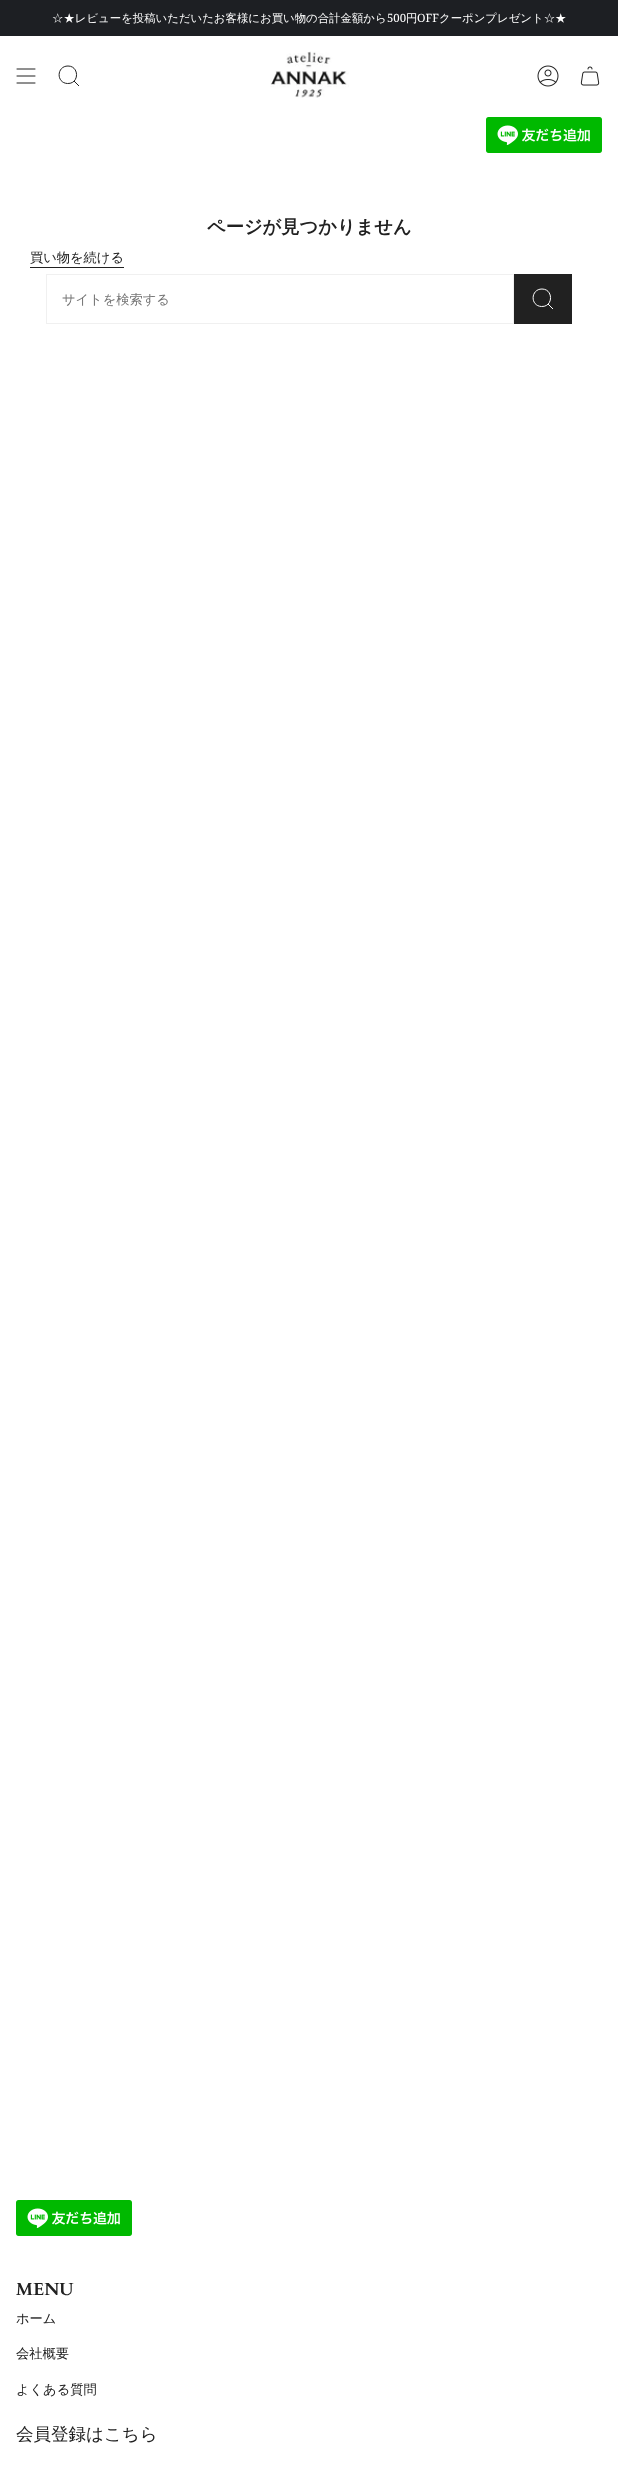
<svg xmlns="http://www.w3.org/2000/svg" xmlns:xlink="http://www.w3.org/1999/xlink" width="618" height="2472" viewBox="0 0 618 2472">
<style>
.cls-1{font:500 11.4px WenQuanYi Zen Hei;fill:#ffffff}
.cls-2{font:11.4px Noto Serif;fill:#ffffff}
.cls-3{font:bold 18.25px WenQuanYi Zen Hei;fill:#212121}
.cls-4{font:500 13.25px WenQuanYi Zen Hei;fill:#212121}
.cls-5{font:500 13.25px WenQuanYi Zen Hei;fill:#757575}
.cls-6{font:bold 17.5px Cardo;fill:#212121}
.cls-7{font:500 17.5px WenQuanYi Zen Hei;fill:#212121}
</style>
<rect width="100%" height="100%" fill="#ffffff"/>
<rect fill="#1d1f23" x="0" y="0" width="618" height="36"/>
<path fill="none" stroke="#212121" stroke-linecap="round" stroke-linejoin="round" d="M17 69H35M17 76H35M17 83H35"/>
<path fill="none" stroke="#212121" d="M68 66C79.5 66 79.5 84 67.5 83.5C56 83 56.5 66 68 66ZM74 81L79 86"/>
<image xlink:href="image0.png" x="270" y="51" width="79" height="47"/>
<image xlink:href="image1.png" x="537" y="65" width="22" height="22"/>
<image xlink:href="image2.png" x="580" y="66" width="20" height="20"/>
<image xlink:href="image3.png" x="486" y="117" width="116" height="36"/>
<rect fill="#212121" x="30" y="267" width="94" height="1"/>
<rect fill="none" stroke="#f0f0f0" x="46.5" y="274.5" width="467" height="49"/>
<rect fill="#212121" x="514" y="274" width="58" height="50"/>
<path fill="none" stroke="#ffffff" d="M542 289C553.5 289 553.5 307 541.5 306.5C530 306 530.5 289 542 289ZM548 304L553 309"/>
<image xlink:href="image3.png" x="16" y="2200" width="116" height="36"/>
<text class="cls-1" x="52" y="22">☆★レビューを投稿いただいたお客様にお買い物の合計金額から</text>
<text class="cls-2" x="387" y="22">500</text>
<text class="cls-1" x="406" y="22">円</text>
<text class="cls-2" x="417" y="22">OFF</text>
<text class="cls-1" x="439" y="22">クーポンプレゼント☆★</text>
<text class="cls-3" x="207" y="233">ページが見つかりません</text>
<text class="cls-4" x="30" y="262">買い物を続ける</text>
<text class="cls-5" x="62" y="304">サイトを検索する</text>
<text class="cls-6" x="16" y="2295">MENU</text>
<text class="cls-4" x="16" y="2323">ホーム</text>
<text class="cls-4" x="16" y="2358">会社概要</text>
<text class="cls-4" x="16" y="2394">よくある質問</text>
<text class="cls-7" x="16" y="2440">会員登録はこちら</text>
</svg>
